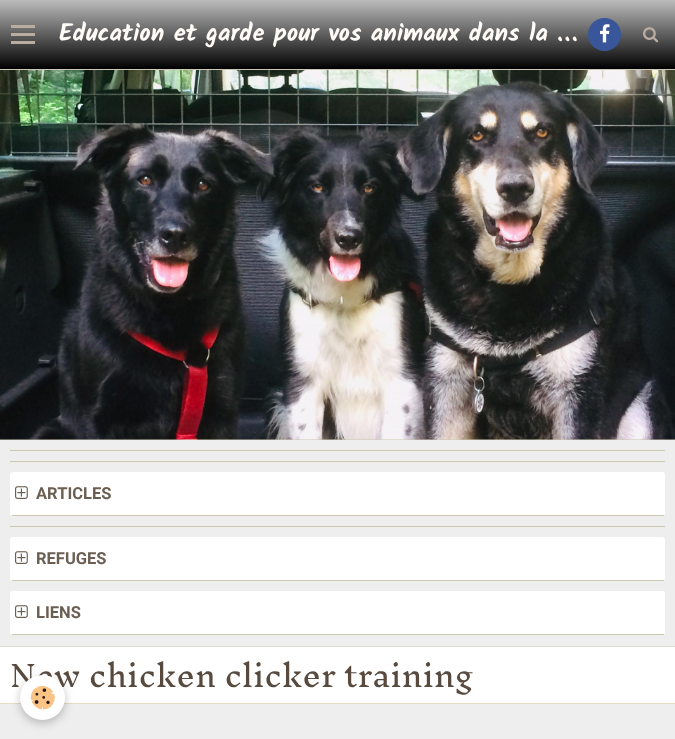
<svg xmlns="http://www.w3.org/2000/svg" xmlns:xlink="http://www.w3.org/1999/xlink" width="675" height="739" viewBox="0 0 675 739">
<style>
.cls-1{font:bold 24.5px Kalam;fill:#fffbf7}
.cls-2{font:bold 16.5px Roboto;fill:#6b5f53}
.cls-3{font:300 29.4px Inknut Antiqua;fill:#584a3e}
</style>
<defs>
<linearGradient id="g1" gradientUnits="userSpaceOnUse" x1="338" y1="69" x2="338" y2="0"><stop offset="0" stop-color="#000000"/><stop offset="1" stop-color="#bcbcbc"/></linearGradient>
</defs>
<rect width="100%" height="100%" fill="#eeeeee"/>
<rect fill="#cdc8b1" x="0" y="69" width="675" height="1"/>
<rect fill="url(#g1)" x="0" y="0" width="675" height="69"/>
<rect fill="#baada0" x="11" y="33" width="24" height="3"/>
<rect fill="#baada0" x="11" y="25" width="24" height="3"/>
<rect fill="#baada0" x="11" y="41" width="24" height="3"/>
<circle fill="#385699" cx="604.5" cy="34.5" r="16.5"/>
<image xlink:href="image0.png" x="600" y="24" width="10" height="19"/>
<image xlink:href="image1.png" x="643" y="27" width="16" height="16"/>
<image xlink:href="image2.png" x="0" y="70" width="675" height="370"/>
<rect fill="#cdc8b1" fill-opacity="0.5" x="0" y="439" width="675" height="1"/>
<rect fill="#dedbd0" x="0" y="646" width="675" height="1"/>
<rect fill="#cdc8b1" x="10" y="450" width="655" height="1"/>
<rect fill="#cdc8b1" x="10" y="461" width="655" height="1"/>
<rect fill="#ffffff" x="10" y="472" width="655" height="44" rx="3"/>
<rect fill="#cdc8b1" x="12" y="515" width="652" height="1"/>
<image xlink:href="image3.png" x="15" y="486" width="13" height="13"/>
<rect fill="#cdc8b1" x="10" y="526" width="655" height="1"/>
<rect fill="#ffffff" x="10" y="537" width="655" height="44" rx="3"/>
<rect fill="#cdc8b1" x="12" y="580" width="652" height="1"/>
<image xlink:href="image3.png" x="15" y="551" width="13" height="13"/>
<rect fill="#ffffff" x="10" y="591" width="655" height="44" rx="3"/>
<rect fill="#cdc8b1" x="12" y="634" width="652" height="1"/>
<image xlink:href="image3.png" x="15" y="605" width="13" height="13"/>
<rect fill="#ffffff" x="0" y="647" width="675" height="56"/>
<rect fill="#e3dec6" x="0" y="703" width="675" height="1"/>
<rect fill="#000000" fill-opacity="0.24" filter="blur(5px)" x="20" y="678" width="45" height="45" rx="22.5"/>
<text class="cls-1" x="59" y="41">Education et garde pour vos animaux dans la …</text>
<text class="cls-2" x="36" y="499">ARTICLES</text>
<text class="cls-2" x="36" y="564">REFUGES</text>
<text class="cls-2" x="36" y="618">LIENS</text>
<text class="cls-3" x="10" y="687">New chicken clicker training</text>
<circle fill="#ffffff" cx="42.5" cy="697.5" r="22.5"/>
<image xlink:href="image4.png" x="30" y="685" width="25" height="25"/>
</svg>
